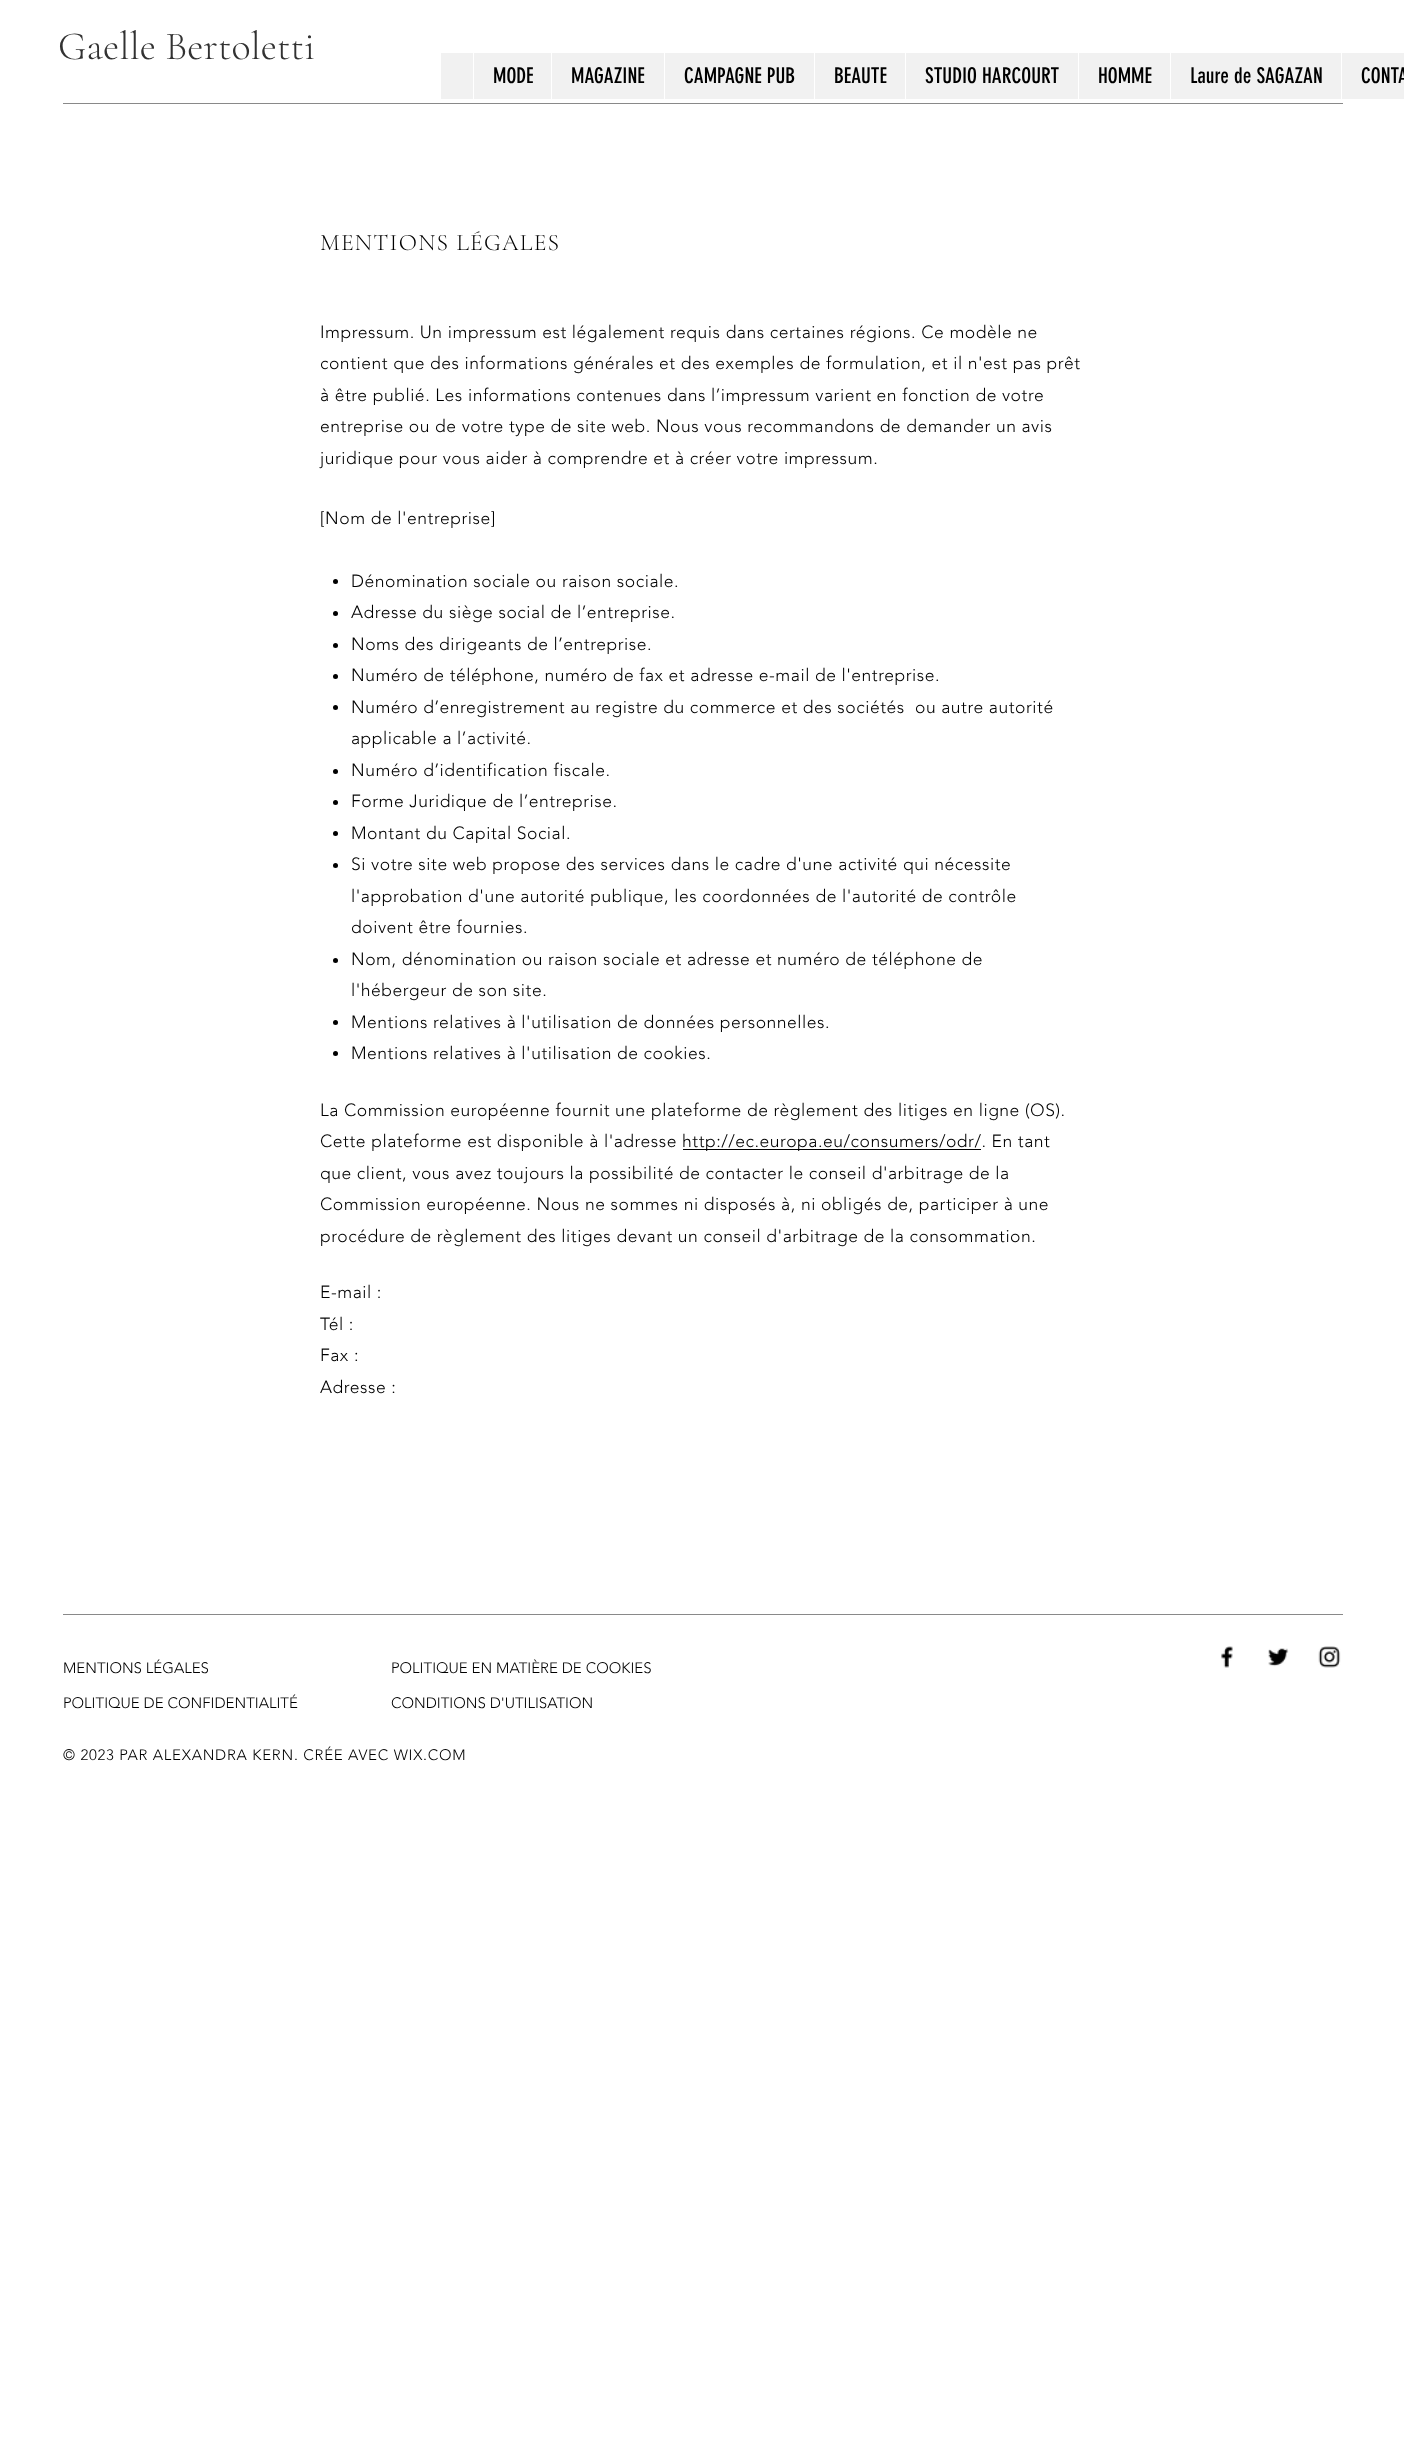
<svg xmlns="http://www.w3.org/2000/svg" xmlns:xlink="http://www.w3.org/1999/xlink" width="1404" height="2455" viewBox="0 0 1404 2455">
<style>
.cls-1{font:300 40px Cormorant Garamond;fill:#323232}
.cls-2{font:21.25px 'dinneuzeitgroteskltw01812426';fill:#000000}
.cls-3{font:300 23.75px Cormorant Garamond;letter-spacing:1.25px;fill:#000000}
.cls-4{font:300 17.5px 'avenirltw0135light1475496';letter-spacing:0.53px;fill:#000000}
.cls-5{font:300 15px 'avenirltw0135light1475496';fill:#000000}
.cls-6{font:300 15px 'avenirltw0135light1475496';letter-spacing:0.75px;fill:#000000}
</style>
<rect width="100%" height="100%" fill="#ffffff"/>
<rect fill="#f1f1f1" x="441" y="53" width="963" height="46"/>
<rect fill="#ffffff" x="473" y="53" width="1" height="46"/>
<rect fill="#ffffff" x="551" y="53" width="1" height="46"/>
<rect fill="#ffffff" x="664" y="53" width="1" height="46"/>
<rect fill="#ffffff" x="814" y="53" width="1" height="46"/>
<rect fill="#ffffff" x="905" y="53" width="1" height="46"/>
<rect fill="#ffffff" x="1078" y="53" width="1" height="46"/>
<rect fill="#ffffff" x="1170" y="53" width="1" height="46"/>
<rect fill="#ffffff" x="1341" y="53" width="1" height="46"/>
<rect fill="#898989" x="63" y="103" width="1280" height="1"/>
<circle fill="#000000" cx="335.5" cy="581.5" r="2.5"/>
<circle fill="#000000" cx="335.5" cy="613.5" r="2.5"/>
<circle fill="#000000" cx="335.5" cy="645.5" r="2.5"/>
<circle fill="#000000" cx="335.5" cy="676.5" r="2.5"/>
<circle fill="#000000" cx="335.5" cy="707.5" r="2.5"/>
<circle fill="#000000" cx="335.5" cy="771.5" r="2.5"/>
<circle fill="#000000" cx="335.5" cy="802.5" r="2.5"/>
<circle fill="#000000" cx="335.5" cy="833.5" r="2.5"/>
<circle fill="#000000" cx="335.5" cy="865.5" r="2.5"/>
<circle fill="#000000" cx="335.5" cy="960.5" r="2.5"/>
<circle fill="#000000" cx="335.5" cy="1022.5" r="2.5"/>
<circle fill="#000000" cx="335.5" cy="1053.5" r="2.5"/>
<rect fill="#000000" x="683" y="1149" width="298" height="1"/>
<rect fill="#898989" x="63" y="1614" width="1280" height="1"/>
<image xlink:href="image0.png" x="1221" y="1646" width="12" height="22"/>
<image xlink:href="image1.png" x="1268" y="1648" width="21" height="19"/>
<image xlink:href="image2.png" x="1318" y="1646" width="23" height="22"/>
<text class="cls-1" x="58" y="59">Gaelle Bertoletti</text>
<text class="cls-2" x="493" y="83">MODE</text>
<text class="cls-2" x="571" y="83">MAGAZINE</text>
<text class="cls-2" x="684" y="83">CAMPAGNE PUB</text>
<text class="cls-2" x="834" y="83">BEAUTE</text>
<text class="cls-2" x="925" y="83">STUDIO HARCOURT</text>
<text class="cls-2" x="1098" y="83">HOMME</text>
<text class="cls-2" x="1190" y="83">Laure de SAGAZAN</text>
<text class="cls-2" x="1361" y="83">CONTA</text>
<text class="cls-3" x="320" y="250">MENTIONS LÉGALES</text>
<text class="cls-4"><tspan x="320" y="338">Impressum. Un impressum est légalement requis dans certaines régions. Ce modèle ne</tspan><tspan x="320" y="369">contient que des informations générales et des exemples de formulation, et il n'est pas prêt</tspan><tspan x="320" y="401">à être publié. Les informations contenues dans l’impressum varient en fonction de votre</tspan><tspan x="320" y="432">entreprise ou de votre type de site web. Nous vous recommandons de demander un avis</tspan><tspan x="320" y="464">juridique pour vous aider à comprendre et à créer votre impressum.</tspan></text>
<text class="cls-4" x="320" y="524">[Nom de l'entreprise]</text>
<text class="cls-4" xml:space="preserve"><tspan x="351" y="587">Dénomination sociale ou raison sociale.</tspan><tspan x="351" y="618">Adresse du siège social de l’entreprise.</tspan><tspan x="351" y="650">Noms des dirigeants de l’entreprise.</tspan><tspan x="351" y="681">Numéro de téléphone, numéro de fax et adresse e-mail de l'entreprise.</tspan><tspan x="351" y="713">Numéro d’enregistrement au registre du commerce et des sociétés  ou autre autorité</tspan><tspan x="351" y="744">applicable a l’activité.</tspan><tspan x="351" y="776">Numéro d’identification fiscale.</tspan><tspan x="351" y="807">Forme Juridique de l’entreprise.</tspan><tspan x="351" y="839">Montant du Capital Social.</tspan><tspan x="351" y="870">Si votre site web propose des services dans le cadre d'une activité qui nécessite</tspan><tspan x="351" y="902">l'approbation d'une autorité publique, les coordonnées de l'autorité de contrôle</tspan><tspan x="351" y="933">doivent être fournies.</tspan><tspan x="351" y="965">Nom, dénomination ou raison sociale et adresse et numéro de téléphone de</tspan><tspan x="351" y="996">l'hébergeur de son site.</tspan><tspan x="351" y="1028">Mentions relatives à l'utilisation de données personnelles.</tspan><tspan x="351" y="1059">Mentions relatives à l'utilisation de cookies.</tspan></text>
<text class="cls-4"><tspan x="320" y="1116">La Commission européenne fournit une plateforme de règlement des litiges en ligne (OS).</tspan><tspan x="320" y="1147">Cette plateforme est disponible à l'adresse</tspan></text>
<text class="cls-4" x="682" y="1147">http://ec.europa.eu/consumers/odr/. En tant</text>
<text class="cls-4"><tspan x="320" y="1179">que client, vous avez toujours la possibilité de contacter le conseil d'arbitrage de la</tspan><tspan x="320" y="1210">Commission européenne. Nous ne sommes ni disposés à, ni obligés de, participer à une</tspan><tspan x="320" y="1242">procédure de règlement des litiges devant un conseil d'arbitrage de la consommation.</tspan></text>
<text class="cls-4"><tspan x="320" y="1298">E-mail :</tspan><tspan x="320" y="1330">Tél :</tspan><tspan x="320" y="1361">Fax :</tspan><tspan x="320" y="1393">Adresse :</tspan></text>
<text class="cls-5" x="63" y="1673">MENTIONS LÉGALES</text>
<text class="cls-5" x="391" y="1673">POLITIQUE EN MATIÈRE DE COOKIES</text>
<text class="cls-5" x="63" y="1708">POLITIQUE DE CONFIDENTIALITÉ</text>
<text class="cls-5" x="391" y="1708">CONDITIONS D'UTILISATION</text>
<text class="cls-6" x="63" y="1760">© 2023 PAR ALEXANDRA KERN. CRÉE AVEC WIX.COM</text>
</svg>
